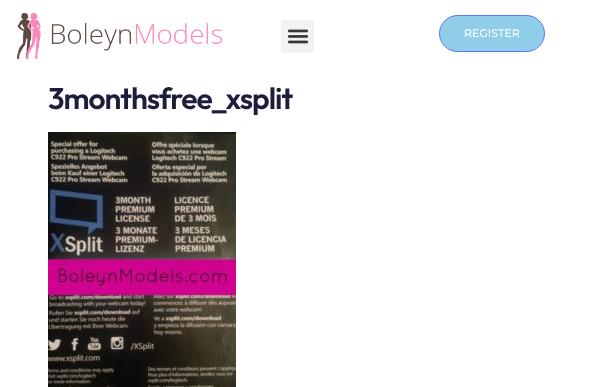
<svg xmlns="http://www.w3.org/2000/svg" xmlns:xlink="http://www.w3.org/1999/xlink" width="596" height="387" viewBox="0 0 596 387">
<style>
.cls-1{font:500 11px Montserrat;fill:#ffffff}
.cls-2{font:600 30px Outfit;letter-spacing:-1px;fill:#1d1d3c}
</style>
<rect width="100%" height="100%" fill="#ffffff"/>
<image xlink:href="image0.png" x="17" y="13" width="205" height="46"/>
<rect fill="#f2f2f2" x="281" y="20" width="33" height="33" rx="3"/>
<image xlink:href="image1.png" x="287" y="29" width="22" height="15"/>
<rect fill="#8fcde8" stroke="#6078ff" x="439.5" y="15.5" width="105" height="36" rx="18"/>
<image xlink:href="image2.png" x="48" y="132" width="188" height="255"/>
<text class="cls-1" x="464" y="37">REGISTER</text>
<text class="cls-2" x="48" y="109">3monthsfree_xsplit</text>
</svg>
